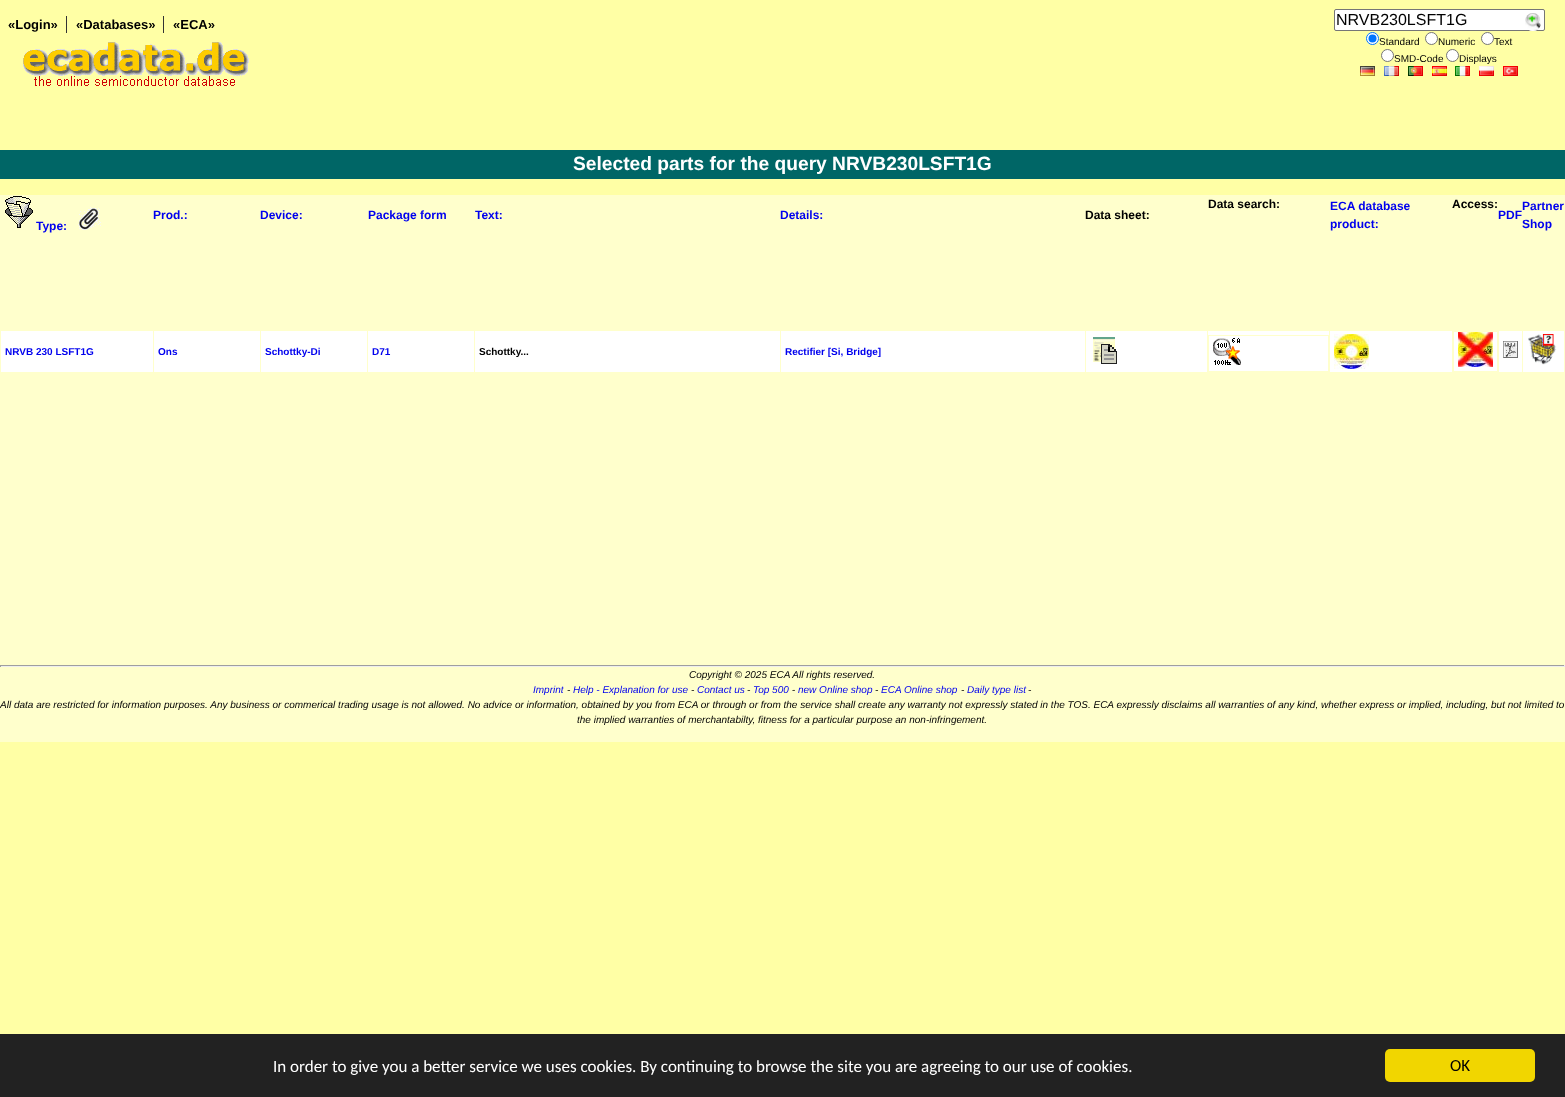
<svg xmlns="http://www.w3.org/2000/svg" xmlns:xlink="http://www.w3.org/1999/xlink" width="1565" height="1097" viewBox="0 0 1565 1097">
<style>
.cls-1{font:bold 13px Liberation Sans;fill:#000000}
.cls-2{font:16px Liberation Sans;fill:#000000}
.cls-3{font:10px Liberation Sans;fill:#000000}
.cls-4{font:bold 19.2px Liberation Sans;fill:#ffffff}
.cls-5{font:bold 12px Liberation Sans;fill:#0000ee}
.cls-6{font:bold 12px Liberation Sans;fill:#000000}
.cls-7{font:bold 10px Liberation Sans;fill:#0000ee}
.cls-8{font:bold 10px Liberation Sans;fill:#000000}
.cls-9{font:italic 10px Liberation Sans;fill:#000000}
.cls-10{font:italic 10px Liberation Sans;fill:#0000ee}
.cls-11{font:17px Carlito;fill:#ffffff}
.cls-12{font:17px Carlito;fill:#000000}
</style>
<rect width="100%" height="100%" fill="#ffffa5"/>
<rect fill="#333333" x="66" y="16" width="1" height="17"/>
<rect fill="#333333" x="163" y="16" width="1" height="17"/>
<rect fill="#ffffff" stroke="#767676" x="1334.5" y="9.5" width="210" height="21" rx="1.5"/>
<rect fill="#ffffff" x="1525" y="13" width="16" height="18" rx="8"/>
<image xlink:href="image0.png" x="1525" y="13" width="16" height="18"/>
<circle fill="#ffffff" stroke="#0075ff" cx="1372.5" cy="38.5" r="6"/>
<circle fill="#0075ff" cx="1372.5" cy="38.5" r="4"/>
<circle fill="#ffffff" stroke="#767676" cx="1431.5" cy="38.5" r="6"/>
<circle fill="#ffffff" stroke="#767676" cx="1487.5" cy="38.5" r="6"/>
<circle fill="#ffffff" stroke="#767676" cx="1387.5" cy="55.5" r="6"/>
<circle fill="#ffffff" stroke="#767676" cx="1452.5" cy="55.5" r="6"/>
<image xlink:href="image1.png" x="1360" y="66" width="15" height="10"/>
<image xlink:href="image2.png" x="1384" y="66" width="15" height="10"/>
<image xlink:href="image3.png" x="1408" y="66" width="15" height="10"/>
<image xlink:href="image4.png" x="1432" y="66" width="15" height="10"/>
<image xlink:href="image5.png" x="1455" y="66" width="15" height="10"/>
<image xlink:href="image6.png" x="1479" y="66" width="15" height="10"/>
<image xlink:href="image7.png" x="1503" y="66" width="15" height="10"/>
<image xlink:href="image8.png" x="23" y="42" width="226" height="44"/>
<rect fill="#006666" x="0" y="150" width="1565" height="29"/>
<rect fill="#ffffcc" x="0" y="195" width="1565" height="547"/>
<image xlink:href="image9.png" x="5" y="196" width="28" height="32"/>
<image xlink:href="image10.png" x="78" y="207" width="23" height="23"/>
<rect fill="#ffffff" x="1" y="331" width="1563" height="41"/>
<rect fill="#ffffcc" x="153" y="330" width="1" height="43"/>
<rect fill="#ffffcc" x="260" y="330" width="1" height="43"/>
<rect fill="#ffffcc" x="367" y="330" width="1" height="43"/>
<rect fill="#ffffcc" x="474" y="330" width="1" height="43"/>
<rect fill="#ffffcc" x="780" y="330" width="1" height="43"/>
<rect fill="#ffffcc" x="1207" y="330" width="1" height="43"/>
<rect fill="#ffffcc" x="1085" y="330" width="1" height="43"/>
<image xlink:href="image11.png" x="1093" y="337" width="24" height="27"/>
<rect fill="none" stroke="#ffffcc" x="1208.5" y="335.5" width="120" height="36"/>
<image xlink:href="image12.png" x="1213" y="338" width="28" height="27"/>
<rect fill="#ffffcc" x="1452" y="330" width="1" height="43"/>
<rect fill="#ffffcc" x="1329" y="330" width="1" height="43"/>
<image xlink:href="image13.png" x="1334" y="334" width="35" height="35"/>
<rect fill="none" stroke="#ffffcc" x="1453.5" y="331.5" width="44" height="40"/>
<image xlink:href="image14.png" x="1458" y="332" width="35" height="35"/>
<rect fill="#ffffcc" x="1498" y="330" width="1" height="43"/>
<image xlink:href="image15.png" x="1503" y="341" width="15" height="17"/>
<rect fill="#ffffcc" x="1522" y="330" width="1" height="43"/>
<image xlink:href="image16.png" x="1528" y="334" width="29" height="31"/>
<rect fill="#9f9f9f" x="0" y="665" width="1565" height="1"/>
<rect fill="#eeeeee" x="1564" y="665" width="1" height="2"/>
<rect fill="#eeeeee" x="0" y="666" width="1565" height="1"/>
<rect fill="#9f9f9f" x="0" y="665" width="1" height="2"/>
<rect fill="#222222" x="0" y="1034" width="1565" height="63"/>
<rect fill="#f1d600" x="1385" y="1049" width="150" height="33" rx="5"/>
<text class="cls-1" x="8" y="29">«Login»</text>
<text class="cls-1" x="76" y="29">«Databases»</text>
<text class="cls-1" x="173" y="29">«ECA»</text>
<text class="cls-2" x="1336" y="25">NRVB230LSFT1G</text>
<text class="cls-3" x="1379" y="45">Standard</text>
<text class="cls-3" x="1438" y="45">Numeric</text>
<text class="cls-3" x="1494" y="45">Text</text>
<text class="cls-3" x="1394" y="62">SMD-Code</text>
<text class="cls-3" x="1459" y="62">Displays</text>
<text class="cls-4" x="573" y="170">Selected parts for the query NRVB230LSFT1G</text>
<text class="cls-5" x="153" y="219">Prod.:</text>
<text class="cls-5" x="260" y="219">Device:</text>
<text class="cls-5" x="368" y="219">Package form</text>
<text class="cls-5" x="475" y="219">Text:</text>
<text class="cls-5" x="780" y="219">Details:</text>
<text class="cls-6" x="1085" y="219">Data sheet:</text>
<text class="cls-6" x="1208" y="208">Data search:</text>
<text class="cls-5"><tspan x="1330" y="210">ECA database</tspan><tspan x="1330" y="228">product:</tspan></text>
<text class="cls-6" x="1452" y="208">Access:</text>
<text class="cls-5" x="1498" y="219">PDF</text>
<text class="cls-5"><tspan x="1522" y="210">Partner</tspan><tspan x="1522" y="228">Shop</tspan></text>
<text class="cls-5" x="36" y="230">Type:</text>
<text class="cls-7" x="5" y="355">NRVB 230 LSFT1G</text>
<text class="cls-7" x="158" y="355">Ons</text>
<text class="cls-7" x="265" y="355">Schottky-Di</text>
<text class="cls-7" x="372" y="355">D71</text>
<text class="cls-8" x="479" y="355">Schottky...</text>
<text class="cls-7" x="785" y="355">Rectifier [Si, Bridge]</text>
<text class="cls-9" x="689" y="678">Copyright © 2025 ECA All rights reserved.</text>
<text class="cls-10" x="533" y="693">Imprint</text>
<text class="cls-9" x="567" y="693">-</text>
<text class="cls-10" x="573" y="693">Help - Explanation for use</text>
<text class="cls-9" x="691" y="693">-</text>
<text class="cls-10" x="697" y="693">Contact us</text>
<text class="cls-9" x="747" y="693">-</text>
<text class="cls-10" x="753" y="693">Top 500</text>
<text class="cls-3" x="792" y="693">-</text>
<text class="cls-10" x="798" y="693">new Online shop</text>
<text class="cls-9" x="875" y="693">-</text>
<text class="cls-10" x="881" y="693">ECA Online shop</text>
<text class="cls-9" x="961" y="693">-</text>
<text class="cls-10" x="967" y="693">Daily type list</text>
<text class="cls-9" x="1028" y="693">-</text>
<text class="cls-9" x="0" y="708">All data are restricted for information purposes. Any business or commerical trading usage is not allowed. No advice or information, obtained by you from ECA or through or from the service shall create any warranty not expressly stated in the TOS. ECA expressly disclaims all warranties of any kind, whether express or implied, including, but not limited to</text>
<text class="cls-9" x="577" y="723">the implied warranties of merchantabilty, fitness for a particular purpose an non-infringement.</text>
<text class="cls-11" x="273" y="1072">In order to give you a better service we uses cookies. By continuing to browse the site you are agreeing to our use of cookies.</text>
<text class="cls-12" x="1450" y="1071">OK</text>
</svg>
